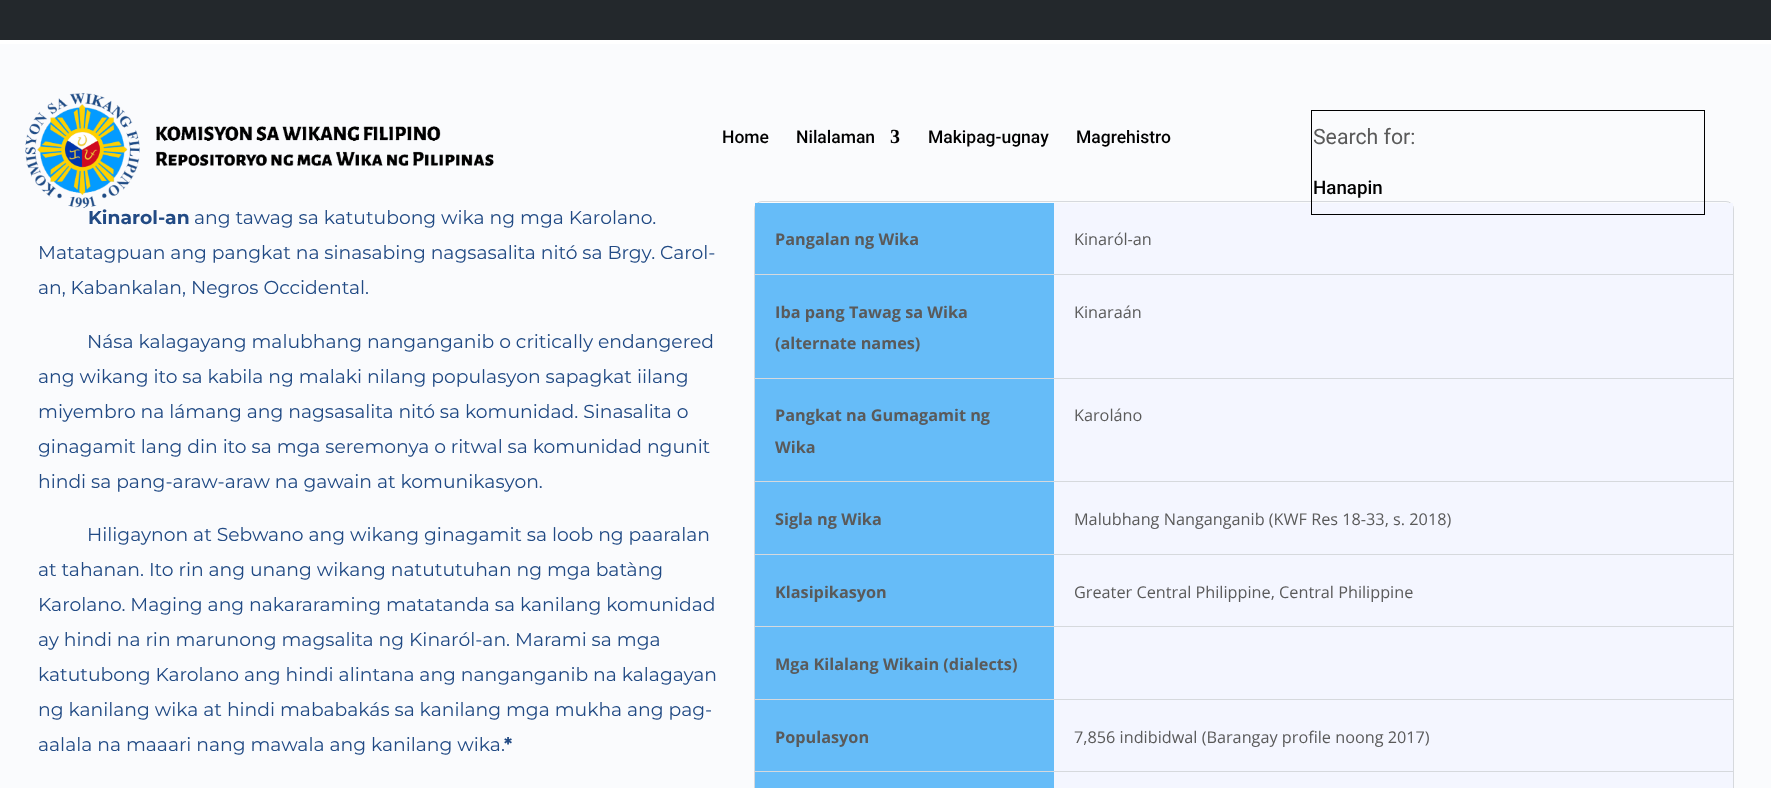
<svg xmlns="http://www.w3.org/2000/svg" xmlns:xlink="http://www.w3.org/1999/xlink" width="1771" height="788" viewBox="0 0 1771 788">
<style>
.cls-1{font:500 17.5px Roboto;fill:#000000}
.cls-2{font:bold 20px Liberation Serif;fill:#000000}
.cls-3{font:21.25px Roboto;fill:#5a5a5a}
.cls-4{font:500 18.75px Roboto;fill:#000000}
.cls-5{font:bold 18.75px Montserrat;fill:#214a84}
.cls-6{font:18.75px Montserrat;fill:#214a84}
.cls-7{font:bold 16.25px Open Sans;fill:#5a5a5a}
.cls-8{font:16.25px Open Sans;fill:#5a5a5a}
</style>
<rect width="100%" height="100%" fill="#ffffff"/>
<rect fill="#23282c" x="0" y="0" width="1771" height="40"/>
<rect fill="#fafbfd" x="0" y="44" width="1771" height="744"/>
<image xlink:href="image0.png" x="25" y="93" width="469" height="115"/>
<rect fill="none" stroke="#d6d9dd" x="754.5" y="201.5" width="979" height="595" rx="7.5"/>
<rect fill="#f4f6ff" x="1054" y="203" width="679" height="71"/>
<rect fill="none" stroke="#000000" x="1311.5" y="110.5" width="393" height="104"/>
<rect fill="#66bcf8" x="755" y="203" width="299" height="71"/>
<rect fill="#d6d9dd" x="755" y="274" width="978" height="1"/>
<rect fill="#66bcf8" x="755" y="275" width="299" height="103"/>
<rect fill="#d6d9dd" x="755" y="378" width="978" height="1"/>
<rect fill="#f4f6ff" x="1054" y="275" width="679" height="103"/>
<rect fill="#66bcf8" x="755" y="379" width="299" height="175"/>
<rect fill="#d6d9dd" x="755" y="481" width="299" height="1"/>
<rect fill="#f4f6ff" x="1054" y="379" width="679" height="175"/>
<rect fill="#d6d9dd" x="1054" y="481" width="679" height="1"/>
<rect fill="#d6d9dd" x="755" y="554" width="978" height="1"/>
<rect fill="#66bcf8" x="755" y="555" width="299" height="144"/>
<rect fill="#d6d9dd" x="755" y="626" width="299" height="1"/>
<rect fill="#f4f6ff" x="1054" y="555" width="679" height="144"/>
<rect fill="#d6d9dd" x="1054" y="626" width="679" height="1"/>
<rect fill="#d6d9dd" x="755" y="699" width="978" height="1"/>
<rect fill="#66bcf8" x="755" y="700" width="299" height="88"/>
<rect fill="#d6d9dd" x="755" y="771" width="299" height="1"/>
<rect fill="#f4f6ff" x="1054" y="700" width="679" height="88"/>
<rect fill="#d6d9dd" x="1054" y="771" width="679" height="1"/>
<text class="cls-1" x="722" y="143">Home</text>
<text class="cls-1" x="796" y="143">Nilalaman</text>
<text class="cls-2" x="890" y="143">3</text>
<text class="cls-1" x="928" y="143">Makipag-ugnay</text>
<text class="cls-1" x="1076" y="143">Magrehistro</text>
<text class="cls-3" x="1313" y="144">Search for:</text>
<text class="cls-4" x="1313" y="194">Hanapin</text>
<text class="cls-5" x="88" y="224">Kinarol-an</text>
<text class="cls-6" x="194" y="224">ang tawag sa katutubong wika ng mga Karolano.</text>
<text class="cls-6"><tspan x="38" y="259">Matatagpuan ang pangkat na sinasabing nagsasalita nitó sa Brgy. Carol-</tspan><tspan x="38" y="294">an, Kabankalan, Negros Occidental.</tspan></text>
<text class="cls-6" x="87" y="348">Nása kalagayang malubhang nanganganib o critically endangered</text>
<text class="cls-6"><tspan x="38" y="383">ang wikang ito sa kabila ng malaki nilang populasyon sapagkat iilang</tspan><tspan x="38" y="418">miyembro na lámang ang nagsasalita nitó sa komunidad. Sinasalita o</tspan><tspan x="38" y="453">ginagamit lang din ito sa mga seremonya o ritwal sa komunidad ngunit</tspan><tspan x="38" y="488">hindi sa pang-araw-araw na gawain at komunikasyon.</tspan></text>
<text class="cls-6" x="87" y="541">Hiligaynon at Sebwano ang wikang ginagamit sa loob ng paaralan</text>
<text class="cls-6"><tspan x="38" y="576">at tahanan. Ito rin ang unang wikang natututuhan ng mga batàng</tspan><tspan x="38" y="611">Karolano. Maging ang nakararaming matatanda sa kanilang komunidad</tspan><tspan x="38" y="646">ay hindi na rin marunong magsalita ng Kinaról-an. Marami sa mga</tspan><tspan x="38" y="681">katutubong Karolano ang hindi alintana ang nanganganib na kalagayan</tspan><tspan x="38" y="716">ng kanilang wika at hindi mababakás sa kanilang mga mukha ang pag-</tspan><tspan x="38" y="751">aalala na maaari nang mawala ang kanilang wika.</tspan></text>
<text class="cls-5" x="504" y="751">*</text>
<text class="cls-7" x="775" y="245">Pangalan ng Wika</text>
<text class="cls-8" x="1074" y="245">Kinaról-an</text>
<text class="cls-7"><tspan x="775" y="318">Iba pang Tawag sa Wika</tspan><tspan x="775" y="349">(alternate names)</tspan></text>
<text class="cls-8" x="1074" y="318">Kinaraán</text>
<text class="cls-7"><tspan x="775" y="421">Pangkat na Gumagamit ng</tspan><tspan x="775" y="453">Wika</tspan></text>
<text class="cls-8" x="1074" y="421">Karoláno</text>
<text class="cls-7" x="775" y="525">Sigla ng Wika</text>
<text class="cls-8" x="1074" y="525">Malubhang Nanganganib (KWF Res 18-33, s. 2018)</text>
<text class="cls-7" x="775" y="598">Klasipikasyon</text>
<text class="cls-8" x="1074" y="598">Greater Central Philippine, Central Philippine</text>
<text class="cls-7" x="775" y="670">Mga Kilalang Wikain (dialects)</text>
<text class="cls-7" x="775" y="743">Populasyon</text>
<text class="cls-8" x="1074" y="743">7,856 indibidwal (Barangay profile noong 2017)</text>
</svg>
